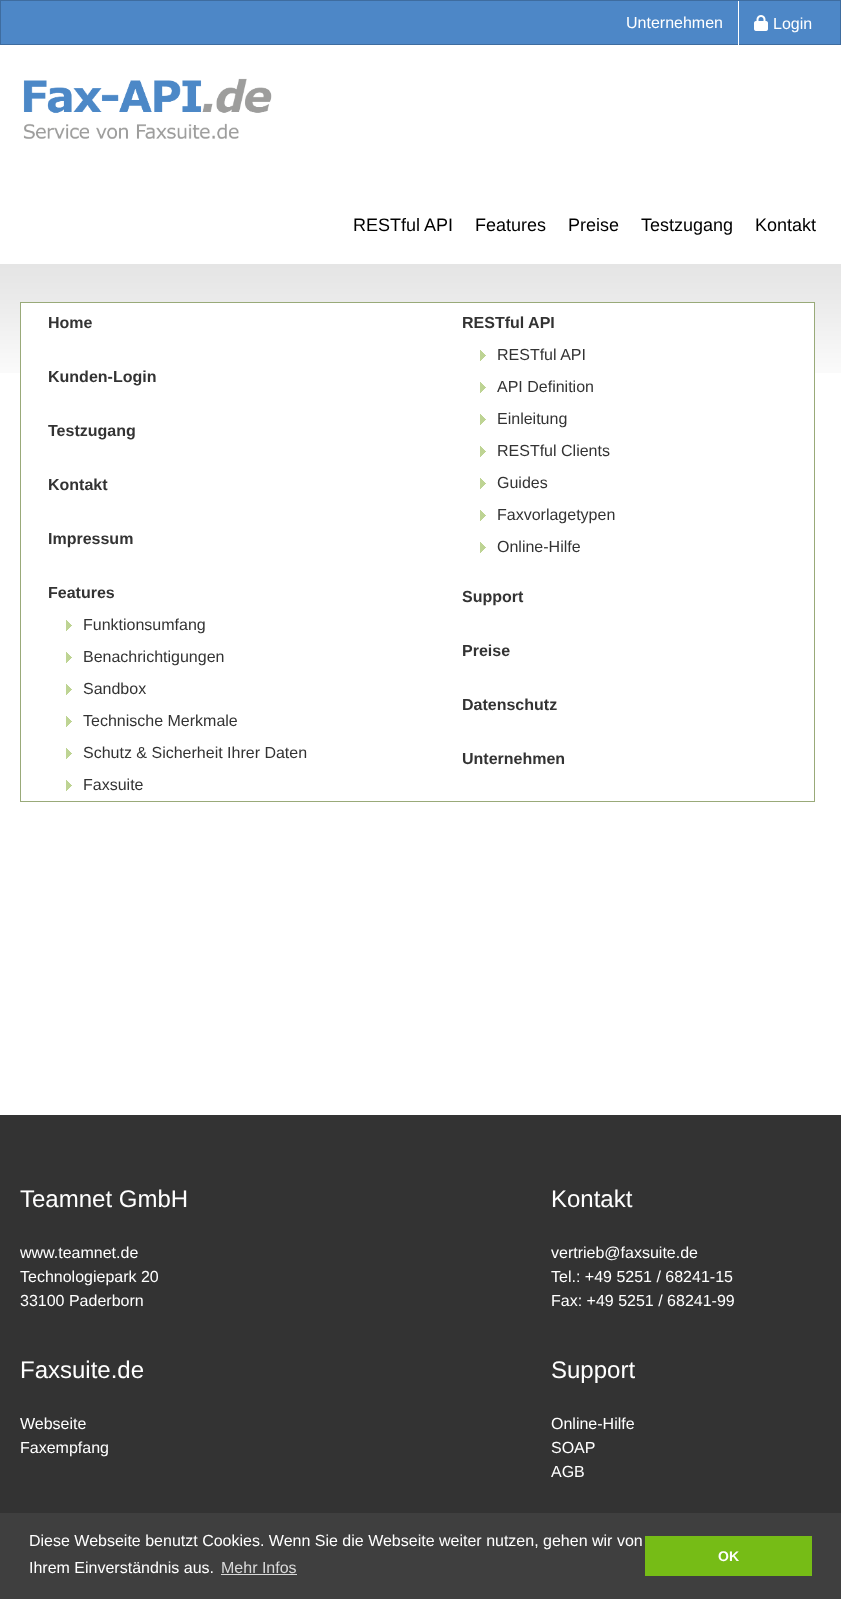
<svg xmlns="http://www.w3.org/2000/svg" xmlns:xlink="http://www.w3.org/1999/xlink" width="841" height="1599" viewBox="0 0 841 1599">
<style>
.cls-1{font:16px Liberation Sans;fill:#ffffff}
.cls-2{font:18px Liberation Sans;fill:#000000}
.cls-3{font:bold 16px Liberation Sans;fill:#333333}
.cls-4{font:16px Liberation Sans;fill:#333333}
.cls-5{font:24px Liberation Sans;fill:#ffffff}
.cls-6{font:16px Liberation Sans;fill:#d9d9d9}
.cls-7{font:bold 14px Liberation Sans;fill:#ffffff}
</style>
<rect width="100%" height="100%" fill="#ffffff"/>
<rect fill="#4d87c7" stroke="#3e6c9f" x="0.5" y="0.5" width="840" height="44"/>
<rect fill="#ffffff" x="738" y="1" width="1" height="44"/>
<image xlink:href="image0.png" x="754" y="15" width="14" height="16"/>
<image xlink:href="image1.png" x="23" y="78" width="249" height="61"/>
<image xlink:href="image2.png" x="0" y="264" width="841" height="109"/>
<rect fill="#ffffff" x="21" y="303" width="793" height="70"/>
<rect fill="none" stroke="#99aa79" x="20.5" y="302.5" width="794" height="499"/>
<image xlink:href="image3.png" x="66" y="620" width="6" height="11"/>
<image xlink:href="image3.png" x="66" y="652" width="6" height="11"/>
<image xlink:href="image3.png" x="66" y="684" width="6" height="11"/>
<image xlink:href="image3.png" x="66" y="716" width="6" height="11"/>
<image xlink:href="image3.png" x="66" y="748" width="6" height="11"/>
<image xlink:href="image3.png" x="66" y="780" width="6" height="11"/>
<image xlink:href="image3.png" x="480" y="350" width="6" height="11"/>
<image xlink:href="image3.png" x="480" y="382" width="6" height="11"/>
<image xlink:href="image3.png" x="480" y="414" width="6" height="11"/>
<image xlink:href="image3.png" x="480" y="446" width="6" height="11"/>
<image xlink:href="image3.png" x="480" y="478" width="6" height="11"/>
<image xlink:href="image3.png" x="480" y="510" width="6" height="11"/>
<image xlink:href="image3.png" x="480" y="542" width="6" height="11"/>
<rect fill="#333333" x="0" y="1115" width="841" height="398"/>
<rect fill="#3f3f3f" x="0" y="1513" width="841" height="86"/>
<rect fill="#d9d9d9" x="221" y="1574" width="76" height="1"/>
<rect fill="#76bc16" x="645" y="1536" width="167" height="40"/>
<text class="cls-1" x="626" y="28">Unternehmen</text>
<text class="cls-1" x="773" y="29">Login</text>
<text class="cls-2" x="353" y="231">RESTful API</text>
<text class="cls-2" x="475" y="231">Features</text>
<text class="cls-2" x="568" y="231">Preise</text>
<text class="cls-2" x="641" y="231">Testzugang</text>
<text class="cls-2" x="755" y="231">Kontakt</text>
<text class="cls-3" x="48" y="328">Home</text>
<text class="cls-3" x="48" y="382">Kunden-Login</text>
<text class="cls-3" x="48" y="436">Testzugang</text>
<text class="cls-3" x="48" y="490">Kontakt</text>
<text class="cls-3" x="48" y="544">Impressum</text>
<text class="cls-3" x="48" y="598">Features</text>
<text class="cls-4" x="83" y="630">Funktionsumfang</text>
<text class="cls-4" x="83" y="662">Benachrichtigungen</text>
<text class="cls-4" x="83" y="694">Sandbox</text>
<text class="cls-4" x="83" y="726">Technische Merkmale</text>
<text class="cls-4" x="83" y="758">Schutz &amp; Sicherheit Ihrer Daten</text>
<text class="cls-4" x="83" y="790">Faxsuite</text>
<text class="cls-3" x="462" y="328">RESTful API</text>
<text class="cls-4" x="497" y="360">RESTful API</text>
<text class="cls-4" x="497" y="392">API Definition</text>
<text class="cls-4" x="497" y="424">Einleitung</text>
<text class="cls-4" x="497" y="456">RESTful Clients</text>
<text class="cls-4" x="497" y="488">Guides</text>
<text class="cls-4" x="497" y="520">Faxvorlagetypen</text>
<text class="cls-4" x="497" y="552">Online-Hilfe</text>
<text class="cls-3" x="462" y="602">Support</text>
<text class="cls-3" x="462" y="656">Preise</text>
<text class="cls-3" x="462" y="710">Datenschutz</text>
<text class="cls-3" x="462" y="764">Unternehmen</text>
<text class="cls-5" x="20" y="1207">Teamnet GmbH</text>
<text class="cls-1"><tspan x="20" y="1258">www.teamnet.de</tspan><tspan x="20" y="1282">Technologiepark 20</tspan><tspan x="20" y="1306">33100 Paderborn</tspan></text>
<text class="cls-5" x="551" y="1207">Kontakt</text>
<text class="cls-1"><tspan x="551" y="1258">vertrieb@faxsuite.de</tspan><tspan x="551" y="1282">Tel.: +49 5251 / 68241-15</tspan><tspan x="551" y="1306">Fax: +49 5251 / 68241-99</tspan></text>
<text class="cls-5" x="20" y="1378">Faxsuite.de</text>
<text class="cls-1"><tspan x="20" y="1429">Webseite</tspan><tspan x="20" y="1453">Faxempfang</tspan></text>
<text class="cls-5" x="551" y="1378">Support</text>
<text class="cls-1"><tspan x="551" y="1429">Online-Hilfe</tspan><tspan x="551" y="1453">SOAP</tspan><tspan x="551" y="1477">AGB</tspan></text>
<text class="cls-1"><tspan x="29" y="1546">Diese Webseite benutzt Cookies. Wenn Sie die Webseite weiter nutzen, gehen wir von</tspan><tspan x="29" y="1573">Ihrem Einverständnis aus.</tspan></text>
<text class="cls-6" x="221" y="1573">Mehr Infos</text>
<text class="cls-7" x="718" y="1561">OK</text>
</svg>
